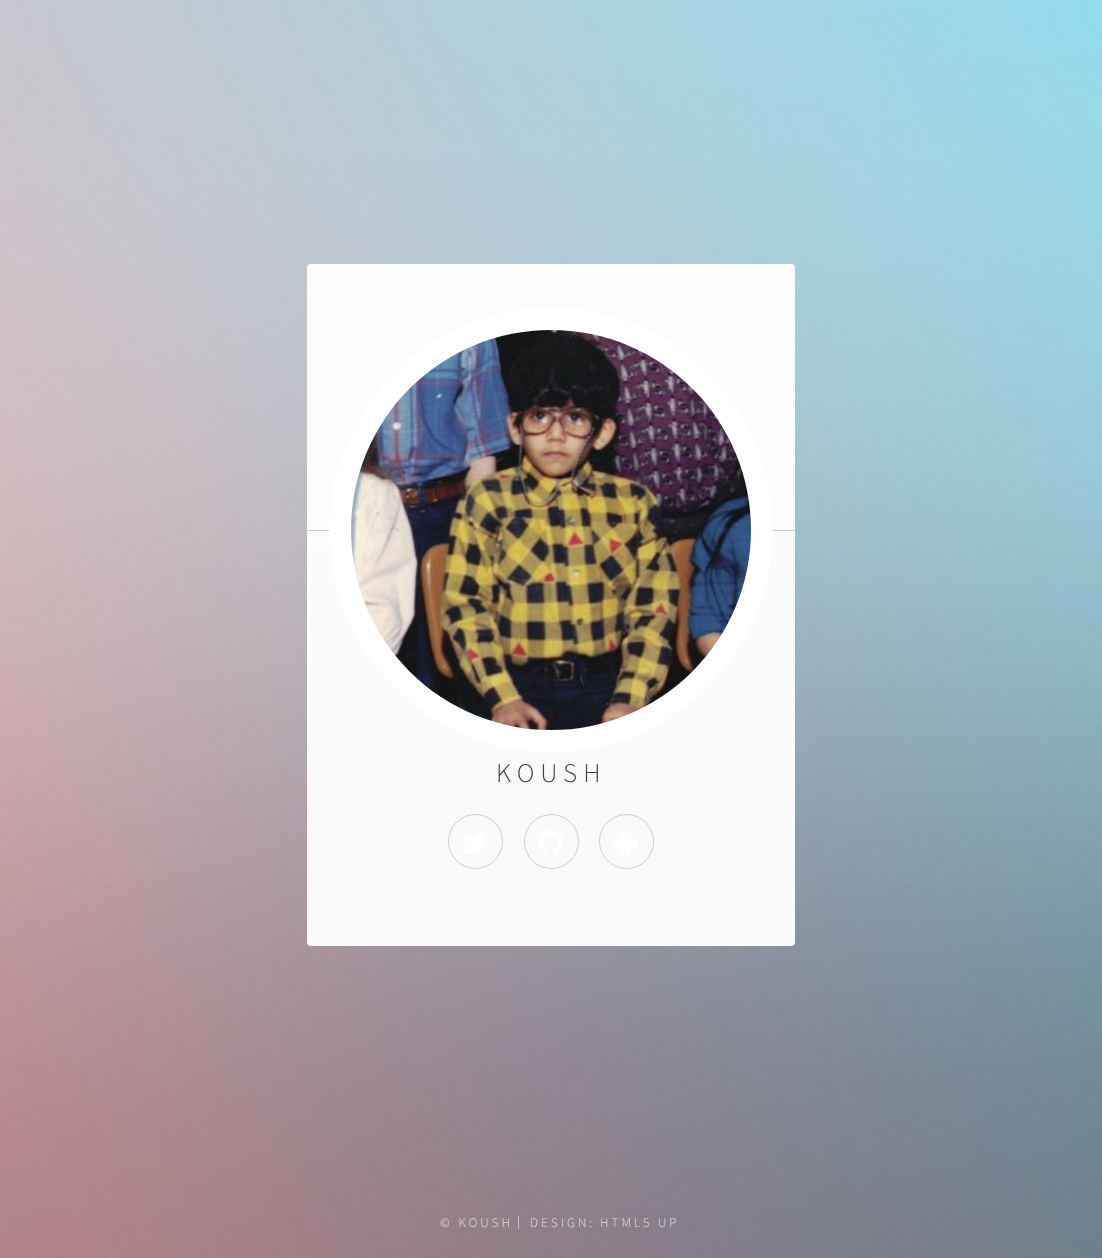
<svg xmlns="http://www.w3.org/2000/svg" xmlns:xlink="http://www.w3.org/1999/xlink" width="1102" height="1258" viewBox="0 0 1102 1258">
<style>
.cls-1{font:300 27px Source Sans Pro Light;letter-spacing:6px;fill:#3b4850}
.cls-2{font:300 13.25px Source Sans Pro Light;letter-spacing:3px;fill:#e4dfe1}
</style>
<rect width="100%" height="100%" fill="#ffffff"/>
<image xlink:href="image0.png" x="0" y="0" width="1102" height="1258"/>
<rect fill="#ffffff" fill-opacity="0.95" x="307" y="264" width="488" height="682" rx="4"/>
<rect fill="#cbced1" x="307" y="530" width="488" height="1"/>
<circle fill="none" stroke="#ffffff" stroke-opacity="0.95" stroke-width="22" cx="551" cy="530" r="211"/>
<image xlink:href="image1.png" x="351" y="330" width="400" height="400"/>
<circle fill="none" stroke="#cbced1" cx="475.5" cy="841.5" r="27"/>
<image xlink:href="image2.png" x="463" y="832" width="23" height="21"/>
<circle fill="none" stroke="#cbced1" cx="551.5" cy="841.5" r="27"/>
<image xlink:href="image3.png" x="538" y="830" width="25" height="24"/>
<circle fill="none" stroke="#caced1" cx="626.5" cy="841.5" r="27"/>
<image xlink:href="image4.png" x="614" y="832" width="23" height="25"/>
<rect fill="#ffffff" fill-opacity="0.5" x="518" y="1216" width="1" height="13"/>
<text class="cls-1" x="496" y="782">KOUSH</text>
<text class="cls-2" x="440" y="1227">© KOUSH</text>
<text class="cls-2" x="530" y="1227">DESIGN:</text>
<text class="cls-2" x="600" y="1227">HTML5 UP</text>
</svg>
